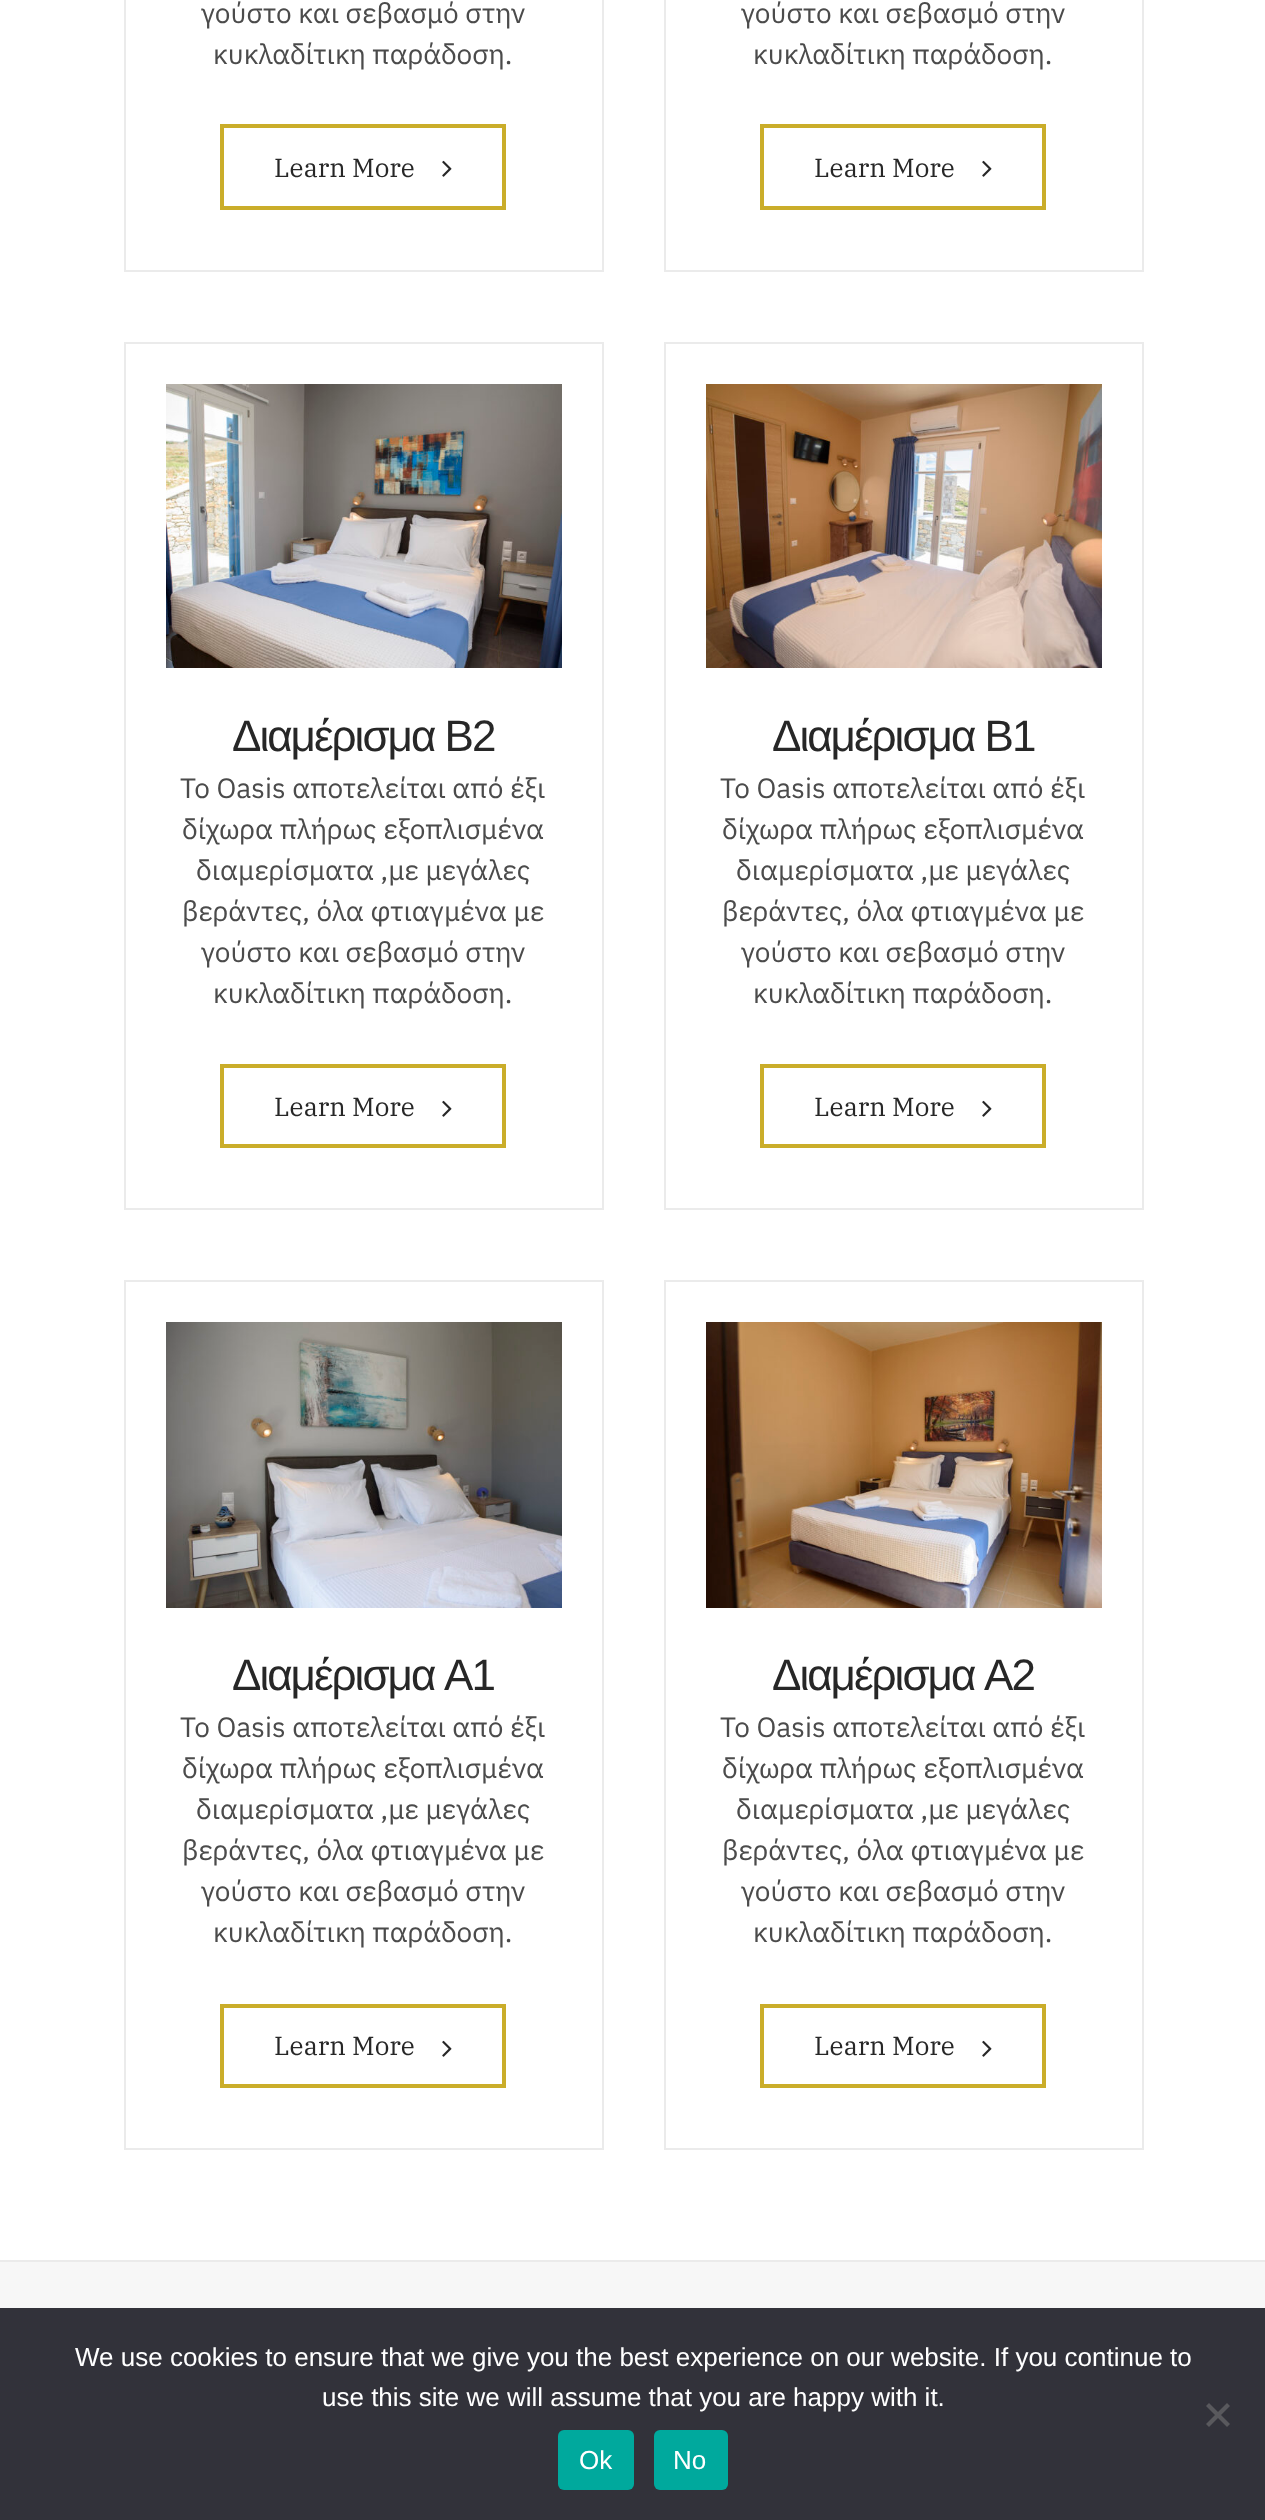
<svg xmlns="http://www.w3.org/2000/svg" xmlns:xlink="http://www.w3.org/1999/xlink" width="1265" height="2520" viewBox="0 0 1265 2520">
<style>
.cls-1{font:28px IBM Plex Sans;fill:#4b4b4b}
.cls-2{font:26px IBM Plex Serif;fill:#272727}
.cls-3{font:44px Liberation Sans;letter-spacing:-2px;fill:#272727}
.cls-4{font:26px Liberation Sans;fill:#ffffff}
</style>
<rect width="100%" height="100%" fill="#ffffff"/>
<rect fill="none" stroke="#ebebeb" stroke-width="2" x="125" y="-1" width="478" height="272"/>
<rect fill="none" stroke="#caad2a" stroke-width="4" x="222" y="126" width="282" height="82"/>
<image xlink:href="image0.png" x="442" y="160" width="10" height="17"/>
<rect fill="none" stroke="#ebebeb" stroke-width="2" x="665" y="-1" width="478" height="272"/>
<rect fill="none" stroke="#caad2a" stroke-width="4" x="762" y="126" width="282" height="82"/>
<image xlink:href="image0.png" x="982" y="160" width="10" height="17"/>
<rect fill="none" stroke="#ebebeb" stroke-width="2" x="125" y="343" width="478" height="866"/>
<image xlink:href="image1.png" x="166" y="384" width="396" height="284"/>
<rect fill="none" stroke="#caad2a" stroke-width="4" x="222" y="1066" width="282" height="80"/>
<image xlink:href="image0.png" x="442" y="1100" width="10" height="17"/>
<rect fill="none" stroke="#ebebeb" stroke-width="2" x="665" y="343" width="478" height="866"/>
<image xlink:href="image2.png" x="706" y="384" width="396" height="284"/>
<rect fill="none" stroke="#caad2a" stroke-width="4" x="762" y="1066" width="282" height="80"/>
<image xlink:href="image0.png" x="982" y="1100" width="10" height="17"/>
<rect fill="none" stroke="#ebebeb" stroke-width="2" x="125" y="1281" width="478" height="868"/>
<image xlink:href="image3.png" x="166" y="1322" width="396" height="286"/>
<rect fill="none" stroke="#caad2a" stroke-width="4" x="222" y="2006" width="282" height="80"/>
<image xlink:href="image0.png" x="442" y="2040" width="10" height="17"/>
<rect fill="none" stroke="#ebebeb" stroke-width="2" x="665" y="1281" width="478" height="868"/>
<image xlink:href="image4.png" x="706" y="1322" width="396" height="286"/>
<rect fill="none" stroke="#caad2a" stroke-width="4" x="762" y="2006" width="282" height="80"/>
<image xlink:href="image0.png" x="982" y="2040" width="10" height="17"/>
<rect fill="#f7f7f7" x="0" y="2262" width="1265" height="46"/>
<rect fill="#ebebeb" x="0" y="2260" width="1265" height="2"/>
<rect fill="#32323a" x="0" y="2308" width="1265" height="212"/>
<path fill="#59595d" d="M1227 2403L1230 2406L1209 2427L1206 2424Z"/>
<path fill="#59595d" d="M1206 2406L1209 2403L1230 2424L1227 2427Z"/>
<rect fill="#00a99d" x="558" y="2430" width="76" height="60" rx="6"/>
<rect fill="#00a99d" x="654" y="2430" width="74" height="60" rx="6"/>
<text class="cls-1" x="201" y="23">γούστο και σεβασμό στην</text>
<text class="cls-1" x="213" y="64">κυκλαδίτικη παράδοση.</text>
<text class="cls-2" x="274" y="177">Learn More</text>
<text class="cls-1" x="741" y="23">γούστο και σεβασμό στην</text>
<text class="cls-1" x="753" y="64">κυκλαδίτικη παράδοση.</text>
<text class="cls-2" x="814" y="177">Learn More</text>
<text class="cls-3" x="232" y="751">Διαμέρισμα Β2</text>
<text class="cls-1" x="180" y="798">Το Oasis αποτελείται από έξι</text>
<text class="cls-1" x="182" y="839">δίχωρα πλήρως εξοπλισμένα</text>
<text class="cls-1" x="196" y="880">διαμερίσματα ,με μεγάλες</text>
<text class="cls-1" x="182" y="921">βεράντες, όλα φτιαγμένα με</text>
<text class="cls-1" x="201" y="962">γούστο και σεβασμό στην</text>
<text class="cls-1" x="213" y="1003">κυκλαδίτικη παράδοση.</text>
<text class="cls-2" x="274" y="1116">Learn More</text>
<text class="cls-3" x="772" y="751">Διαμέρισμα Β1</text>
<text class="cls-1" x="720" y="798">Το Oasis αποτελείται από έξι</text>
<text class="cls-1" x="722" y="839">δίχωρα πλήρως εξοπλισμένα</text>
<text class="cls-1" x="736" y="880">διαμερίσματα ,με μεγάλες</text>
<text class="cls-1" x="722" y="921">βεράντες, όλα φτιαγμένα με</text>
<text class="cls-1" x="741" y="962">γούστο και σεβασμό στην</text>
<text class="cls-1" x="753" y="1003">κυκλαδίτικη παράδοση.</text>
<text class="cls-2" x="814" y="1116">Learn More</text>
<text class="cls-3" x="232" y="1690" word-spacing="2">Διαμέρισμα Α1</text>
<text class="cls-1" x="180" y="1737">Το Oasis αποτελείται από έξι</text>
<text class="cls-1" x="182" y="1778">δίχωρα πλήρως εξοπλισμένα</text>
<text class="cls-1" x="196" y="1819">διαμερίσματα ,με μεγάλες</text>
<text class="cls-1" x="182" y="1860">βεράντες, όλα φτιαγμένα με</text>
<text class="cls-1" x="201" y="1901">γούστο και σεβασμό στην</text>
<text class="cls-1" x="213" y="1942">κυκλαδίτικη παράδοση.</text>
<text class="cls-2" x="274" y="2055">Learn More</text>
<text class="cls-3" x="772" y="1690" word-spacing="2">Διαμέρισμα Α2</text>
<text class="cls-1" x="720" y="1737">Το Oasis αποτελείται από έξι</text>
<text class="cls-1" x="722" y="1778">δίχωρα πλήρως εξοπλισμένα</text>
<text class="cls-1" x="736" y="1819">διαμερίσματα ,με μεγάλες</text>
<text class="cls-1" x="722" y="1860">βεράντες, όλα φτιαγμένα με</text>
<text class="cls-1" x="741" y="1901">γούστο και σεβασμό στην</text>
<text class="cls-1" x="753" y="1942">κυκλαδίτικη παράδοση.</text>
<text class="cls-2" x="814" y="2055">Learn More</text>
<text class="cls-4" x="75" y="2366">We use cookies to ensure that we give you the best experience on our website. If you continue to</text>
<text class="cls-4" x="322" y="2406">use this site we will assume that you are happy with it.</text>
<text class="cls-4" x="579" y="2469">Ok</text>
<text class="cls-4" x="673" y="2469">No</text>
</svg>
